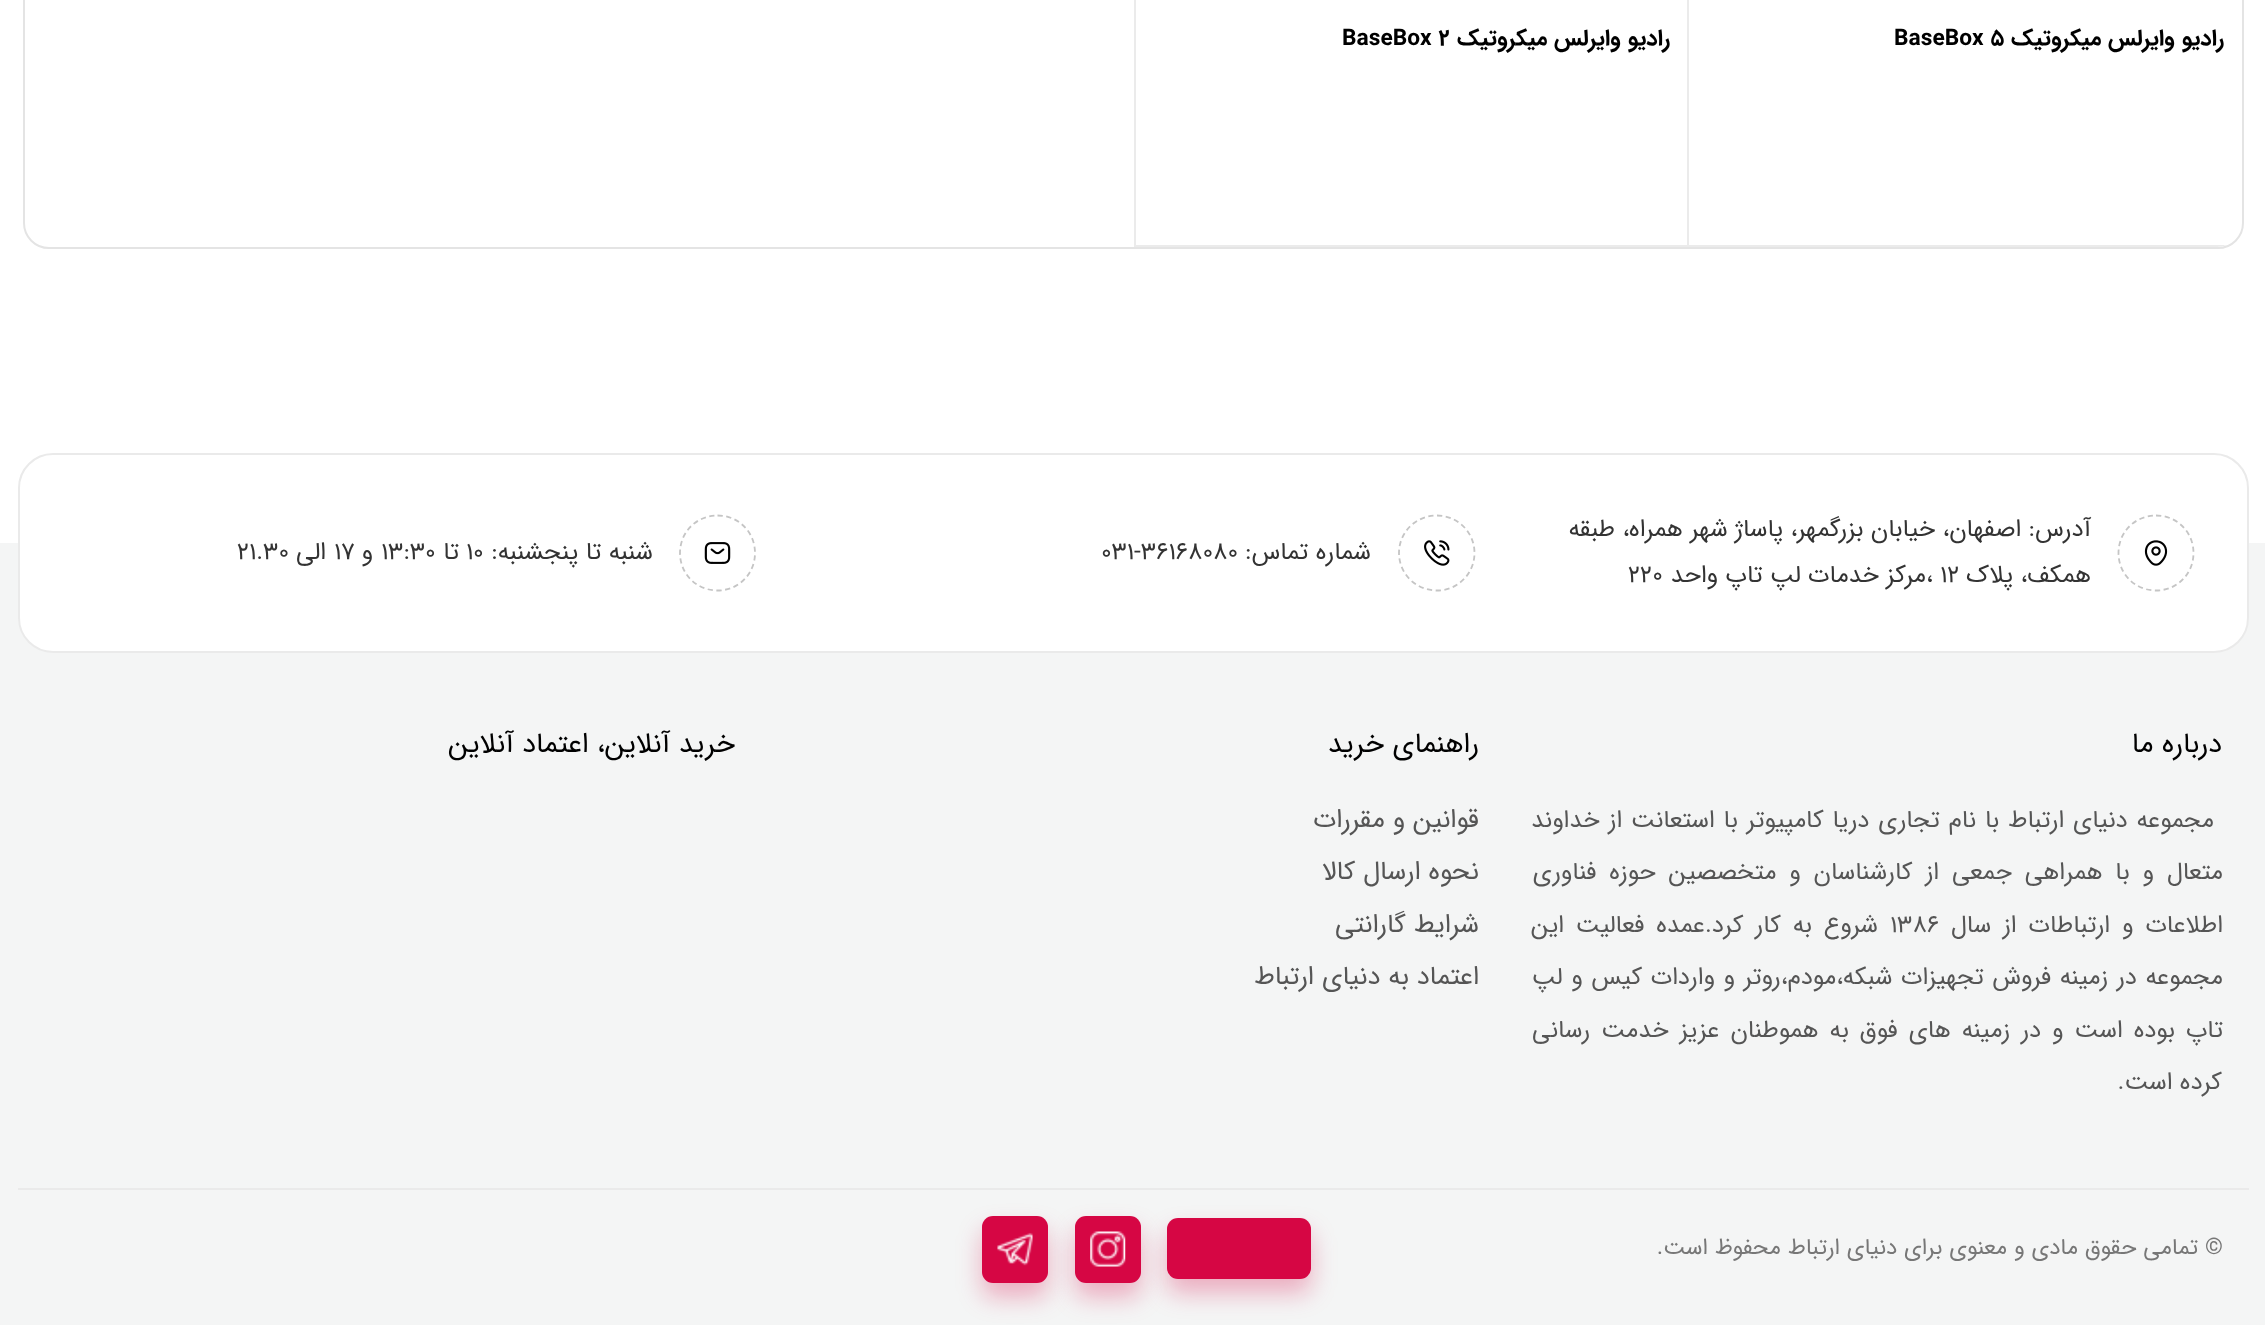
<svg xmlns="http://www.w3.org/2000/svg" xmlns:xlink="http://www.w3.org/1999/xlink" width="2265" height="1325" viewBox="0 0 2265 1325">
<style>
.cls-1{font:bold 22.75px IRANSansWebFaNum;direction:rtl;fill:#000000}
.cls-2{font:bold 22.75px IRANSansWebFaNum;fill:#000000}
.cls-3{font:24.5px IRANSansWebFaNum;direction:rtl;fill:#333333}
.cls-4{font:24.5px IRANSansWebFaNum;fill:#333333}
.cls-5{font:28px IRANSansWebFaNum;direction:rtl;fill:#000000}
.cls-6{font:24.5px IRANSansWebFaNum;direction:rtl;fill:#555555}
.cls-7{font:24.5px IRANSansWebFaNum;fill:#555555}
.cls-8{font:26.25px IRANSansWebFaNum;direction:rtl;fill:#555555}
.cls-9{font:22.75px IRANSansWebFaNum;fill:#777777}
.cls-10{font:22.75px IRANSansWebFaNum;direction:rtl;fill:#777777}
</style>
<defs>
<clipPath id="clip1"><rect x="25" y="-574" width="2217" height="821" rx="25"/></clipPath>
</defs>
<rect width="100%" height="100%" fill="#ffffff"/>
<rect fill="none" stroke="#e4e4e4" stroke-width="2" x="24" y="-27" width="2219" height="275" rx="25"/>
<g clip-path="url(#clip1)">
<rect fill="#ebebeb" x="1687" y="245" width="540" height="2"/>
</g>
<rect fill="#ebebeb" x="1687" y="0" width="2" height="247"/>
<rect fill="#ebebeb" x="1134" y="245" width="553" height="2"/>
<rect fill="#ebebeb" x="1134" y="0" width="2" height="247"/>
<rect fill="#f4f5f5" x="0" y="543" width="2265" height="782"/>
<rect fill="#ffffff" stroke="#eaeaea" stroke-width="2" x="19" y="454" width="2229" height="198" rx="34"/>
<path fill="none" stroke="#c5c5c5" stroke-width="1.8" stroke-dasharray="5.25 3.5" d="M2156 515.5C2177 515.5 2193.5 532 2193.5 553C2193.5 574 2177 590.5 2156 590.5C2135 590.5 2118.5 574 2118.5 553C2118.5 532 2135 515.5 2156 515.5Z"/>
<image xlink:href="image0.png" x="2144" y="540" width="24" height="26"/>
<path fill="none" stroke="#c5c5c5" stroke-width="1.8" stroke-dasharray="5.25 3.5" d="M1437 515.5C1457.5 515.5 1474.5 532 1474.5 553C1474.5 574 1457.5 590.5 1437 590.5C1416 590.5 1399 574 1399 553C1399 532 1416 515.5 1437 515.5Z"/>
<image xlink:href="image1.png" x="1424" y="540" width="26" height="26"/>
<path fill="none" stroke="#c5c5c5" stroke-width="1.8" stroke-dasharray="5.25 3.5" d="M717.5 515.5C738.5 515.5 755 532 755 553C755 574 738.5 590.5 717.5 590.5C696.5 590.5 680 574 680 553C680 532 696.5 515.5 717.5 515.5Z"/>
<image xlink:href="image2.png" x="704" y="542" width="27" height="22"/>
<rect fill="#eaeaea" x="18" y="1188" width="2231" height="2"/>
<rect fill="#d60644" fill-opacity="0.3" filter="blur(12px)" x="1167" y="1232" width="144" height="61" rx="11"/>
<rect fill="#d60644" x="1167" y="1218" width="144" height="61" rx="11"/>
<rect fill="#d60644" fill-opacity="0.3" filter="blur(12px)" x="1075" y="1230" width="66" height="67" rx="11"/>
<rect fill="#d60644" x="1075" y="1216" width="66" height="67" rx="11"/>
<image xlink:href="image3.png" x="1090" y="1231" width="36" height="36"/>
<rect fill="#d60644" fill-opacity="0.3" filter="blur(12px)" x="982" y="1230" width="66" height="67" rx="11"/>
<rect fill="#d60644" x="982" y="1216" width="66" height="67" rx="11"/>
<image xlink:href="image4.png" x="997" y="1232" width="36" height="34"/>
<text class="cls-1" x="2224" y="45">رادیو وایرلس میکروتیک</text>
<text class="cls-2" x="1894" y="45">BaseBox 5</text>
<text class="cls-1" x="1670" y="45">رادیو وایرلس میکروتیک</text>
<text class="cls-2" x="1342" y="45">BaseBox 2</text>
<text class="cls-3"><tspan x="2091" y="536">آدرس: اصفهان، خیابان بزرگمهر، پاساژ شهر همراه، طبقه</tspan><tspan x="2091" y="582">همکف، پلاک</tspan></text>
<text class="cls-4" x="1926" y="582">، 12</text>
<text class="cls-3" x="1926" y="582">مرکز خدمات لپ تاپ واحد</text>
<text class="cls-4" x="1628" y="582">220</text>
<text class="cls-3" x="1371" y="559">شماره تماس:</text>
<text class="cls-4" x="1101" y="559">031-36168080</text>
<text class="cls-3" x="653" y="559">شنبه تا پنجشنبه:</text>
<text class="cls-4" x="466" y="559">10</text>
<text class="cls-3" x="459" y="559">تا</text>
<text class="cls-4" x="381" y="559">13:30</text>
<text class="cls-3" x="373" y="559">و</text>
<text class="cls-4" x="334" y="559">17</text>
<text class="cls-3" x="326" y="559">الی</text>
<text class="cls-4" x="237" y="559">21.30</text>
<text class="cls-5" x="2222" y="752">درباره ما</text>
<text class="cls-6" x="2214" y="827" word-spacing="1.5">مجموعه دنیای ارتباط با نام تجاری دریا کامپیوتر با استعانت از خداوند</text>
<text class="cls-6" x="2223" y="879" word-spacing="5.5">متعال و با همراهی جمعی از کارشناسان و متخصصین حوزه فناوری</text>
<text class="cls-6" x="2223" y="932" word-spacing="4.5">اطلاعات و ارتباطات از سال</text>
<text class="cls-7" x="1890" y="932">1386</text>
<text class="cls-6" x="1878" y="932" word-spacing="4.5">شروع به کار کرد.عمده فعالیت این</text>
<text class="cls-6" x="2223" y="984" word-spacing="1.25">مجموعه در زمینه فروش تجهیزات شبکه،مودم،روتر و واردات کیس و لپ</text>
<text class="cls-6" x="2223" y="1037" word-spacing="3.6">تاپ بوده است و در زمینه های فوق به هموطنان عزیز خدمت رسانی</text>
<text class="cls-6" x="2222" y="1089">کرده است.</text>
<text class="cls-5" x="1479" y="752">راهنمای خرید</text>
<text class="cls-8"><tspan x="1479" y="827">قوانین و مقررات</tspan><tspan x="1479" y="879">نحوه ارسال کالا</tspan></text>
<text class="cls-8"><tspan x="1479" y="932">شرایط گارانتی</tspan><tspan x="1479" y="984">اعتماد به دنیای ارتباط</tspan></text>
<text class="cls-5" x="735" y="752">خرید آنلاین، اعتماد آنلاین</text>
<text class="cls-9" x="2205" y="1254">©</text>
<text class="cls-10" x="2198" y="1254">تمامی حقوق مادی و معنوی برای دنیای ارتباط محفوظ است.</text>
</svg>
